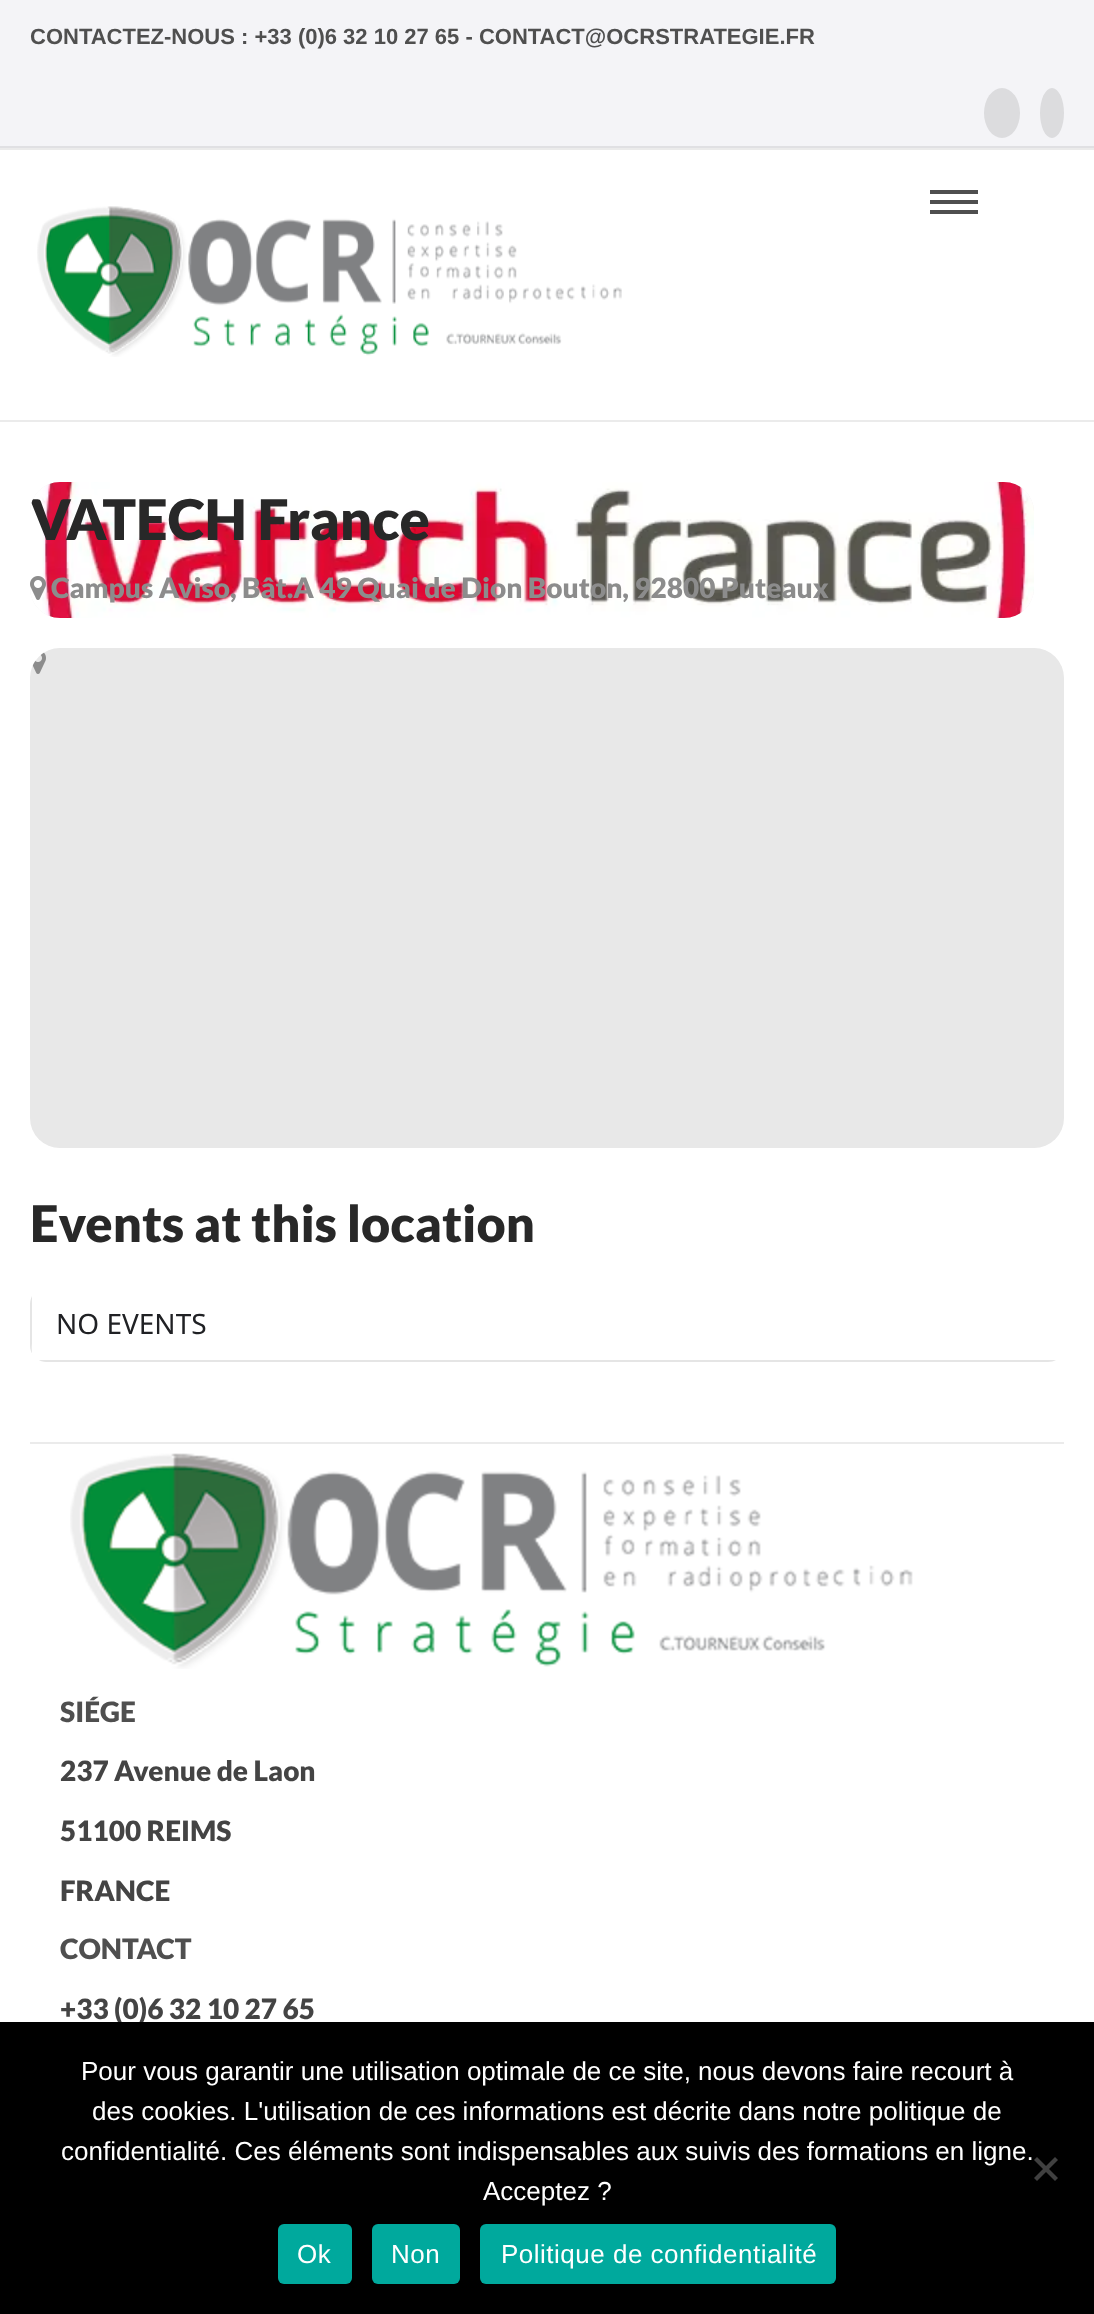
<svg xmlns="http://www.w3.org/2000/svg" xmlns:xlink="http://www.w3.org/1999/xlink" width="1094" height="2314" viewBox="0 0 1094 2314">
<style>
.cls-1{font:bold 22px Liberation Sans;fill:#4f4f4f}
.cls-2{font:900 56px Lato;fill:#282828}
.cls-3{font:900 28px Lato;fill:#8c8c8c}
.cls-4{font:900 50.4px Lato;fill:#282828}
.cls-5{font:28px Noto Sans;fill:#202124}
.cls-6{font:900 28px Lato;fill:#4f4f4f}
.cls-7{font:900 28px Lato;fill:#444444}
.cls-8{font:26px Liberation Sans;fill:#ffffff}
.cls-9{font:26px Liberation Sans;letter-spacing:0.5px;fill:#ffffff}
</style>
<defs>
<clipPath id="clip1"><rect x="30" y="482" width="1004" height="136" rx="30"/></clipPath>
</defs>
<rect width="100%" height="100%" fill="#ffffff"/>
<rect fill="#f4f4f7" x="0" y="0" width="1094" height="146"/>
<rect fill="#e0e0e3" x="0" y="146" width="1094" height="2"/>
<ellipse fill="#dcdcde" cx="1002" cy="113" rx="18" ry="25"/>
<ellipse fill="#dcdcde" cx="1052" cy="113" rx="12" ry="25"/>
<rect fill="#ebebeb" x="0" y="148" width="1094" height="2"/>
<rect fill="#ebebeb" x="0" y="420" width="1094" height="2"/>
<rect fill="#4f4f4f" x="930" y="200" width="48" height="4"/>
<rect fill="#4f4f4f" x="930" y="190" width="48" height="4"/>
<rect fill="#4f4f4f" x="930" y="210" width="48" height="4"/>
<image xlink:href="image0.png" x="37" y="206" width="585" height="151"/>
<rect fill="#f0f0f0" x="30" y="482" width="1004" height="136" rx="30"/>
<image xlink:href="image1.png" x="30" y="482" width="1004" height="136"/>
<image xlink:href="image2.png" x="30" y="576" width="16" height="24"/>
<rect fill="#e8e8e8" x="30" y="648" width="1034" height="500" rx="30"/>
<image xlink:href="image3.png" x="32" y="652" width="14" height="22"/>
<path fill="#e5e5e5" fill-rule="evenodd" d="M30 1304V1346C30 1349 31 1352 33 1355C31 1351 32 1345 32 1343V1296C31 1298 30 1301 30 1304ZM37 1359C40 1361 43 1362 46 1362H1048C1051 1362 1054 1361 1056 1360H40Z"/>
<path fill="#ffffff" d="M46 1288H1048C1057 1288 1064 1295 1064 1304V1346C1064 1352 1061 1357 1056 1360H40H38C35 1358 34 1357 32 1354V1296C35 1291 40 1288 46 1288Z"/>
<rect fill="#ebebeb" x="30" y="1442" width="1034" height="2"/>
<image xlink:href="image4.png" x="70" y="1453" width="843" height="216"/>
<text class="cls-1" x="30" y="44">CONTACTEZ-NOUS : +33 (0)6 32 10 27 65 - CONTACT@OCRSTRATEGIE.FR</text>
<g clip-path="url(#clip1)">
<text class="cls-2" x="30" y="540">VATECH France</text>
</g>
<text class="cls-3" x="51" y="598">Campus Aviso, Bât.A 49 Quai de Dion Bouton, 92800 Puteaux</text>
<text class="cls-4" x="30" y="1242">Events at this location</text>
<text class="cls-5" x="56" y="1334">NO EVENTS</text>
<text class="cls-6" x="60" y="1722">SIÉGE</text>
<text class="cls-7" x="60" y="1781">237 Avenue de Laon</text>
<text class="cls-7" x="60" y="1841">51100 REIMS</text>
<text class="cls-7" x="60" y="1901">FRANCE</text>
<text class="cls-6" x="60" y="1959">CONTACT</text>
<text class="cls-7" x="60" y="2019">+33 (0)6 32 10 27 65</text>
<rect fill="#000000" x="0" y="2022" width="1094" height="292"/>
<text class="cls-8" x="81" y="2080">Pour vous garantir une utilisation optimale de ce site, nous devons faire recourt à</text>
<text class="cls-8" x="92" y="2120">des cookies. L'utilisation de ces informations est décrite dans notre politique de</text>
<text class="cls-8" x="61" y="2160">confidentialité. Ces éléments sont indispensables aux suivis des formations en ligne.</text>
<text class="cls-8" x="483" y="2200">Acceptez ?</text>
<path fill="#404040" d="M1055 2157L1058 2160L1037 2181L1034 2178Z"/>
<path fill="#404040" d="M1034 2160L1037 2157L1058 2178L1055 2181Z"/>
<rect fill="#00a99d" x="278" y="2224" width="74" height="60" rx="6"/>
<text class="cls-9" x="297" y="2263">Ok</text>
<rect fill="#00a99d" x="372" y="2224" width="88" height="60" rx="6"/>
<text class="cls-9" x="391" y="2263">Non</text>
<rect fill="#00a99d" x="480" y="2224" width="356" height="60" rx="6"/>
<text class="cls-9" x="501" y="2263">Politique de confidentialité</text>
</svg>
